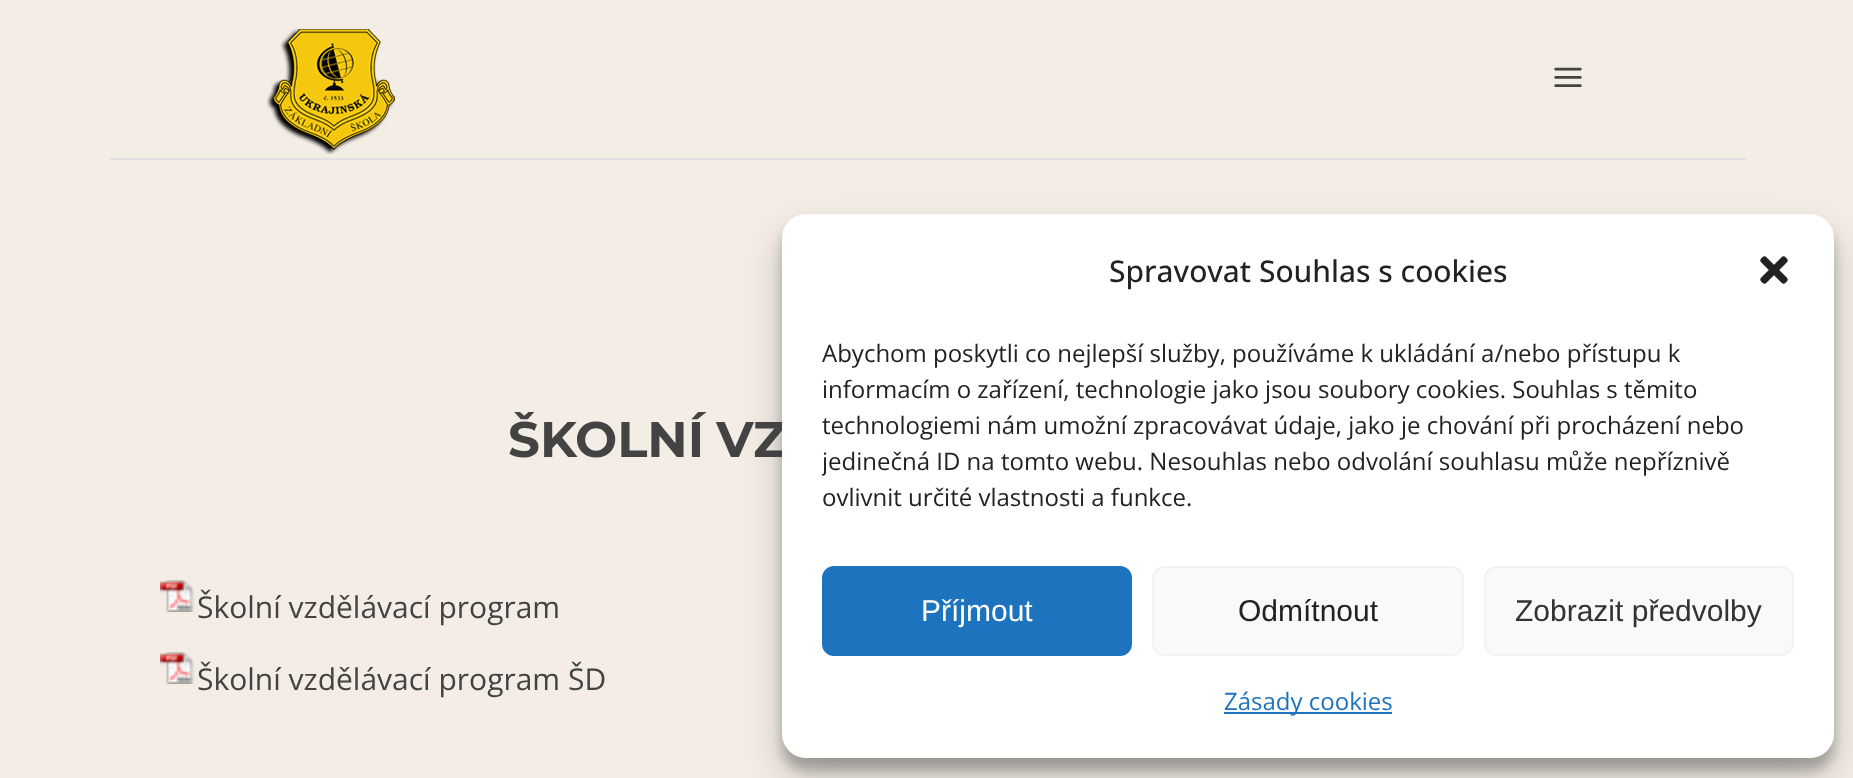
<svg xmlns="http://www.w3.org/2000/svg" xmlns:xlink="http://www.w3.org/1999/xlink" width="1853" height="778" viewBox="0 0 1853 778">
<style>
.cls-1{font:bold 50px Montserrat;fill:#434343}
.cls-2{font:30px Open Sans;fill:#434343}
.cls-3{font:500 30px Open Sans;fill:#222222}
.cls-4{font:24px Open Sans;fill:#222222}
.cls-5{font:30px Liberation Sans;fill:#ffffff}
.cls-6{font:30px Liberation Sans;fill:#222222}
.cls-7{font:30px Liberation Sans;fill:#333333}
.cls-8{font:24px Open Sans;fill:#1e73be}
</style>
<defs>
<clipPath id="clip1"><rect x="822" y="336" width="972" height="190"/></clipPath>
</defs>
<rect width="100%" height="100%" fill="#f3ede5"/>
<rect fill="#e1e1e1" x="110" y="158" width="1636" height="2"/>
<image xlink:href="image0.png" x="266" y="28" width="129" height="126"/>
<image xlink:href="image1.png" x="1554" y="67" width="28" height="20"/>
<image xlink:href="image2.png" x="160" y="580" width="34" height="32"/>
<image xlink:href="image2.png" x="160" y="652" width="34" height="32"/>
<rect fill="#000000" fill-opacity="0.23" filter="blur(6px)" x="782" y="226" width="1052" height="544" rx="24"/>
<rect fill="#000000" fill-opacity="0.19" filter="blur(20px)" x="782" y="234" width="1052" height="544" rx="24"/>
<text class="cls-1" x="508" y="457" word-spacing="-2">ŠKOLNÍ VZ</text>
<text class="cls-2" x="197" y="618">Školní vzdělávací program</text>
<text class="cls-2" x="197" y="690">Školní vzdělávací program ŠD</text>
<rect fill="#ffffff" x="782" y="214" width="1052" height="544" rx="24"/>
<text class="cls-3" x="1109" y="282">Spravovat Souhlas s cookies</text>
<image xlink:href="image3.png" x="1760" y="256" width="28" height="28"/>
<text class="cls-4"><tspan x="822" y="362">Abychom poskytli co nejlepší služby, používáme k ukládání a/nebo přístupu k</tspan><tspan x="822" y="398">informacím o zařízení, technologie jako jsou soubory cookies. Souhlas s těmito</tspan><tspan x="822" y="434">technologiemi nám umožní zpracovávat údaje, jako je chování při procházení nebo</tspan></text>
<g clip-path="url(#clip1)">
<text class="cls-4" x="822" y="470">jedinečná ID na tomto webu. Nesouhlas nebo odvolání souhlasu může nepříznivě</text>
</g>
<text class="cls-4" x="822" y="506">ovlivnit určité vlastnosti a funkce.</text>
<rect fill="#1e73be" stroke="#1e73be" stroke-width="2" x="823" y="567" width="308" height="88" rx="11"/>
<text class="cls-5" x="921" y="621">Příjmout</text>
<rect fill="#f9f9f9" stroke="#f2f2f2" stroke-width="2" x="1153" y="567" width="310" height="88" rx="11"/>
<text class="cls-6" x="1238" y="621">Odmítnout</text>
<rect fill="#f9f9f9" stroke="#f2f2f2" stroke-width="2" x="1485" y="567" width="308" height="88" rx="11"/>
<text class="cls-7" x="1515" y="621">Zobrazit předvolby</text>
<rect fill="#1e73be" x="1224" y="712" width="168" height="2"/>
<text class="cls-8" x="1224" y="710">Zásady cookies</text>
</svg>
